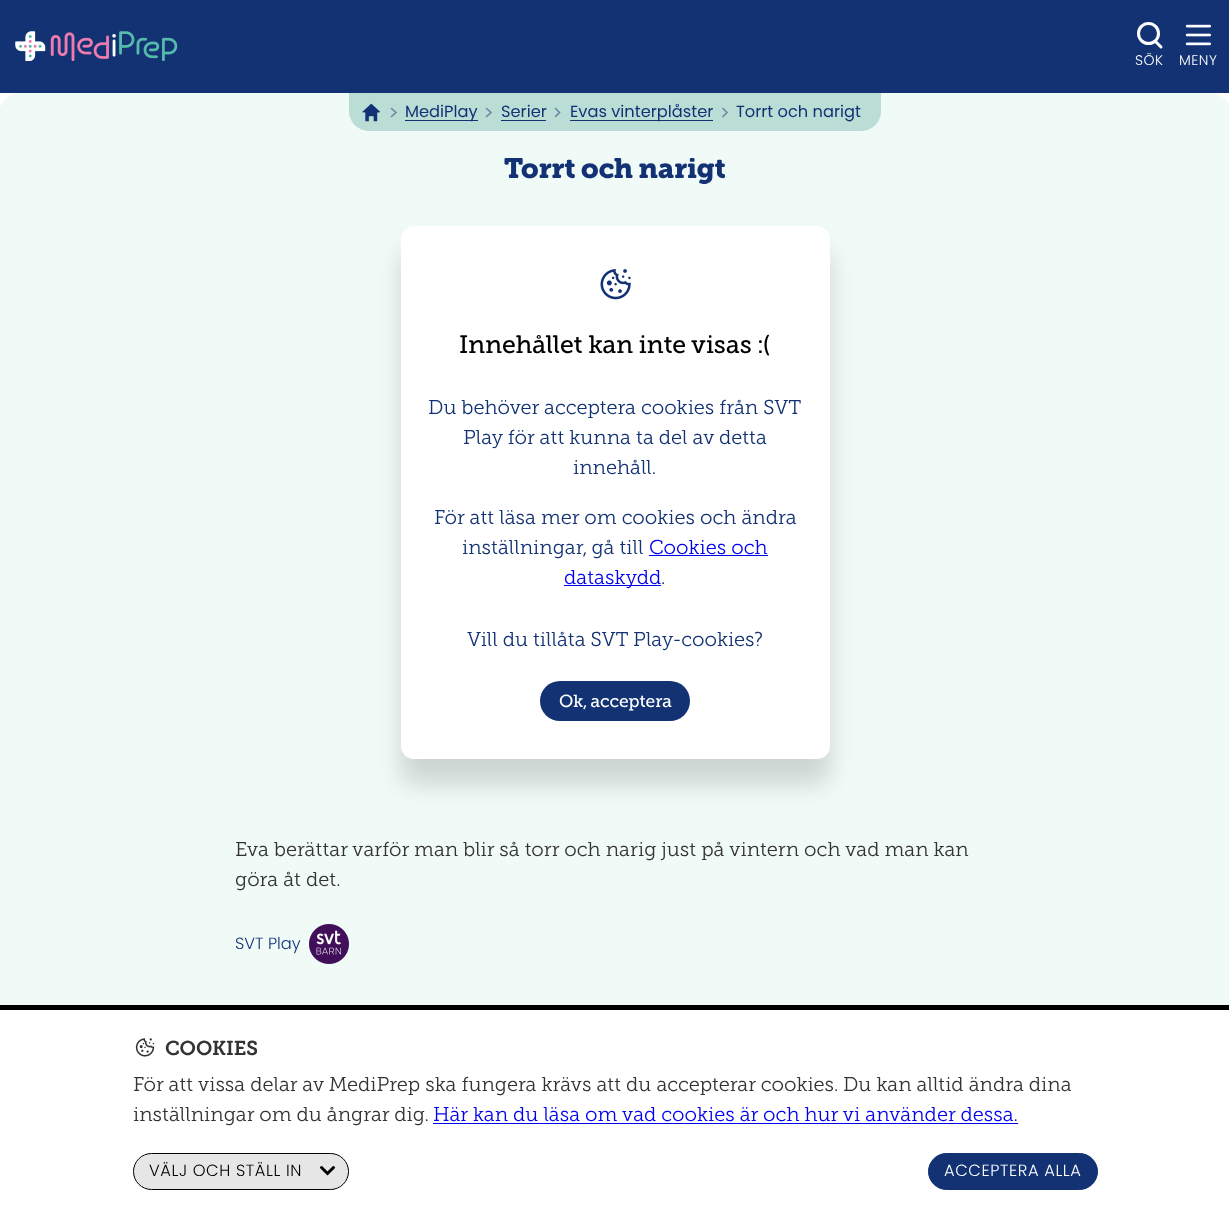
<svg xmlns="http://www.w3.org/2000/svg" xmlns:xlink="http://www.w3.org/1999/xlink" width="1229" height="1215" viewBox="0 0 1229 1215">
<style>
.cls-1{font:300 14px Poppins;letter-spacing:0.5px;fill:#ffffff}
.cls-2{font:16.25px Poppins;fill:#123274}
.cls-3{font:900 28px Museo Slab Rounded;fill:#123274}
.cls-4{font:25px Museo Slab Rounded;fill:#000000}
.cls-5{font:300 20px Museo Slab Rounded;fill:#123274}
.cls-6{font:300 20px Museo Slab Rounded;fill:#0000ee}
.cls-7{font:17.5px Museo Slab Rounded;fill:#ffffff}
.cls-8{font:300 20px Museo Slab Rounded;fill:#333333}
.cls-9{font:300 16.25px Poppins;fill:#123274}
.cls-10{font:600 20px Museo Slab Rounded;fill:#333333}
.cls-11{font:300 16.25px Poppins;letter-spacing:0.6px;fill:#000000}
.cls-12{font:300 16.25px Poppins;letter-spacing:0.6px;fill:#ffffff}
</style>
<rect width="100%" height="100%" fill="#ffffff"/>
<rect fill="#123274" x="0" y="0" width="1229" height="93"/>
<image xlink:href="image0.png" x="15" y="31" width="163" height="30"/>
<circle fill="none" stroke="#ffffff" stroke-width="3" cx="1148.5" cy="33.5" r="10"/>
<path fill="none" stroke="#ffffff" stroke-width="3" stroke-linecap="round" d="M1156 42L1161 47"/>
<image xlink:href="image1.png" x="1185" y="24" width="26" height="22"/>
<rect fill="#000000" fill-opacity="0.2" filter="blur(1px)" x="0" y="95" width="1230" height="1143" rx="20"/>
<rect fill="#f0faf7" x="0" y="93" width="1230" height="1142" rx="20"/>
<path fill="#baded6" d="M349 93H881V111C881 122 872 131 861 131H369C358 131 349 122 349 111Z"/>
<image xlink:href="image2.png" x="362" y="103" width="18" height="19"/>
<path fill="none" stroke="#6688a5" stroke-width="1.6" stroke-linecap="round" d="M391.5 108.5L396 112.5L391.5 116.5"/>
<rect fill="#123274" x="405" y="120" width="73" height="1"/>
<path fill="none" stroke="#6688a5" stroke-width="1.6" stroke-linecap="round" d="M486.5 108.5L491 112.5L486.5 116.5"/>
<rect fill="#123274" x="501" y="120" width="45" height="1"/>
<path fill="none" stroke="#6688a5" stroke-width="1.6" stroke-linecap="round" d="M555.5 108.5L559.5 112.5L555.5 116.5"/>
<rect fill="#123274" x="570" y="120" width="143" height="1"/>
<path fill="none" stroke="#6688a5" stroke-width="1.6" stroke-linecap="round" d="M723 108.5L727 112.5L723 116.5"/>
<rect fill="#666666" fill-opacity="0.25" filter="blur(12.5px)" x="401" y="251" width="429" height="533" rx="13"/>
<rect fill="#ffffff" x="401" y="226" width="429" height="533" rx="13"/>
<image xlink:href="image3.png" x="600" y="269" width="31" height="31"/>
<rect fill="#0000ee" x="649" y="555" width="119" height="1"/>
<rect fill="#0000ee" x="564" y="585" width="97" height="1"/>
<rect fill="#123274" x="540" y="681" width="150" height="40" rx="20"/>
<image xlink:href="image4.png" x="309" y="924" width="40" height="40"/>
<rect fill="#ffffff" x="0" y="1010" width="1229" height="205"/>
<rect fill="#000000" x="0" y="1005" width="1229" height="5"/>
<image xlink:href="image5.png" x="135" y="1038" width="20" height="19"/>
<rect fill="#0000ee" x="433" y="1123" width="585" height="1"/>
<rect fill="#e6e6e6" stroke="#000000" x="133.5" y="1153.5" width="215" height="36" rx="18"/>
<path fill="none" stroke="#000000" stroke-width="3" stroke-linecap="round" d="M333.5 1167.5L327.5 1173.5L321.5 1167.5"/>
<rect fill="#123274" stroke="#123274" x="928.5" y="1153.5" width="169" height="36" rx="18"/>
<text class="cls-1" x="1135" y="65">SÖK</text>
<text class="cls-1" x="1179" y="65">MENY</text>
<text class="cls-2" x="405" y="117">MediPlay</text>
<text class="cls-2" x="501" y="117">Serier</text>
<text class="cls-2" x="570" y="117">Evas vinterplåster</text>
<text class="cls-2" x="736" y="117">Torrt och narigt</text>
<text class="cls-3" x="504" y="178">Torrt och narigt</text>
<text class="cls-4" x="459" y="353">Innehållet kan inte visas :(</text>
<text class="cls-5" x="428" y="414">Du behöver acceptera cookies från SVT</text>
<text class="cls-5" x="463" y="444">Play för att kunna ta del av detta</text>
<text class="cls-5" x="573" y="474">innehåll.</text>
<text class="cls-5" x="434" y="524">För att läsa mer om cookies och ändra</text>
<text class="cls-5" x="462" y="554">inställningar, gå till</text>
<text class="cls-6" x="649" y="554">Cookies och</text>
<text class="cls-6" x="564" y="584">dataskydd</text>
<text class="cls-5" x="661" y="584">.</text>
<text class="cls-5" x="467" y="646">Vill du tillåta SVT Play-cookies?</text>
<text class="cls-7" x="559" y="707">Ok, acceptera</text>
<text class="cls-8"><tspan x="235" y="856">Eva berättar varför man blir så torr och narig just på vintern och vad man kan</tspan><tspan x="235" y="886">göra åt det.</tspan></text>
<text class="cls-9" x="235" y="949">SVT Play</text>
<text class="cls-10" x="165" y="1055">COOKIES</text>
<text class="cls-8"><tspan x="133" y="1091">För att vissa delar av MediPrep ska fungera krävs att du accepterar cookies. Du kan alltid ändra dina</tspan><tspan x="133" y="1121">inställningar om du ångrar dig.</tspan></text>
<text class="cls-6" x="433" y="1121">Här kan du läsa om vad cookies är och hur vi använder dessa.</text>
<text class="cls-11" x="149" y="1176">VÄLJ OCH STÄLL IN</text>
<text class="cls-12" x="944" y="1176">ACCEPTERA ALLA</text>
</svg>
